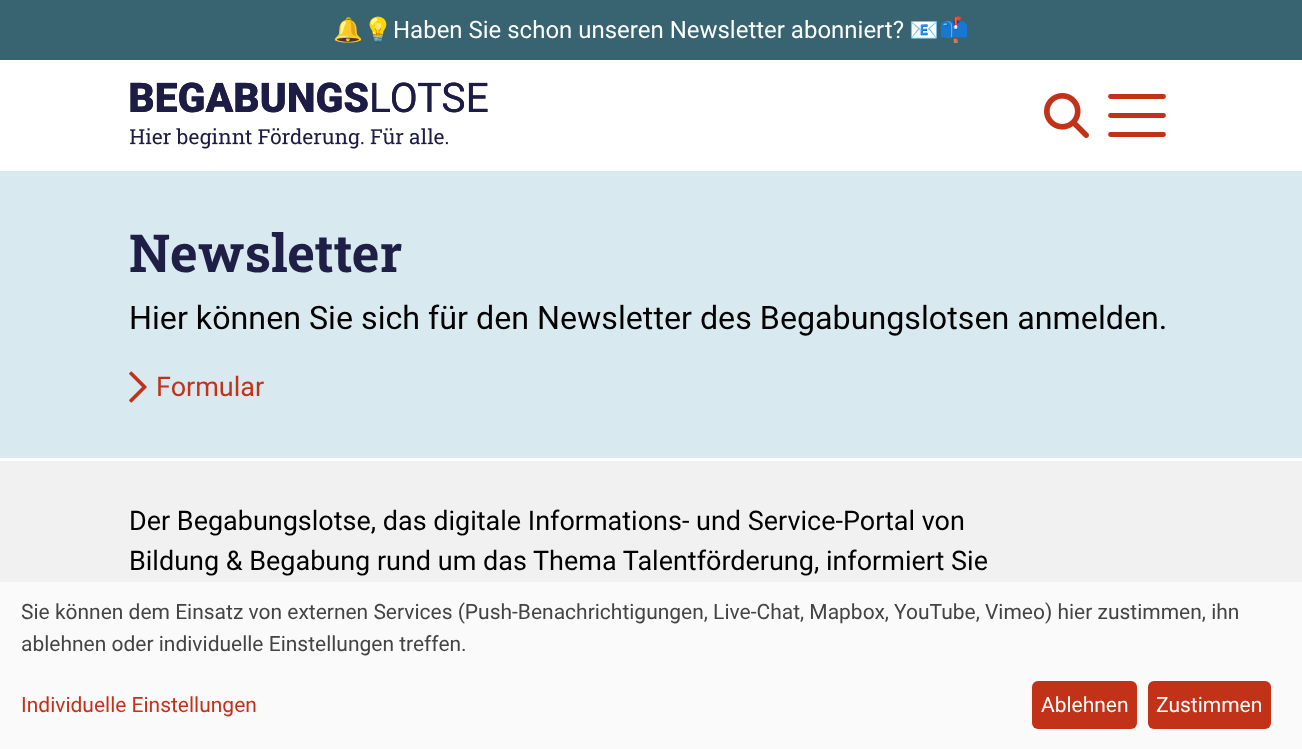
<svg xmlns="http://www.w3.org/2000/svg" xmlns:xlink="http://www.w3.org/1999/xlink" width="1302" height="749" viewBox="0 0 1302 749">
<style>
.cls-1{font:24px Noto Color Emoji;fill:#ffffff}
.cls-2{font:24px Roboto;fill:#ffffff}
.cls-3{font:bold 52.5px Roboto Slab;fill:#1e1e46}
.cls-4{font:32.25px Roboto;fill:#000000}
.cls-5{font:27px Roboto;fill:#c23219}
.cls-6{font:27px Roboto;fill:#000000}
.cls-7{font:21px Roboto;fill:#444444}
.cls-8{font:21px Roboto;fill:#c23219}
.cls-9{font:21px Roboto;fill:#ffffff}
</style>
<rect width="100%" height="100%" fill="#376470"/>
<rect fill="#ffffff" x="0" y="60" width="1302" height="111"/>
<image xlink:href="image0.png" x="130" y="82" width="358" height="67"/>
<image xlink:href="image1.png" x="1044" y="93" width="45" height="45"/>
<path fill="none" stroke="#c23219" stroke-width="4.8" stroke-linecap="round" d="M1110.5 96.5H1163.5M1110.5 115.5H1163.5M1110.5 134.5H1163.5"/>
<rect fill="#d8eaf0" x="0" y="171" width="1302" height="287"/>
<rect fill="#ffffff" x="0" y="458" width="1302" height="3"/>
<image xlink:href="image2.png" x="129" y="371" width="18" height="32"/>
<rect fill="#f1f1f1" x="0" y="461" width="1302" height="121"/>
<rect fill="#fafafa" x="0" y="582" width="1302" height="167"/>
<rect fill="#c23219" x="1032" y="681" width="105" height="48" rx="6"/>
<rect fill="#c23219" x="1148" y="681" width="123" height="48" rx="6"/>
<text class="cls-1" x="333" y="38">🔔💡</text>
<text class="cls-2" x="393" y="38">Haben Sie schon unseren Newsletter abonniert?</text>
<text class="cls-1" x="909" y="38">📧📫</text>
<text class="cls-3" x="129" y="272">Newsletter</text>
<text class="cls-4" x="129" y="329">Hier können Sie sich für den Newsletter des Begabungslotsen anmelden.</text>
<text class="cls-5" x="156" y="396">Formular</text>
<text class="cls-6"><tspan x="129" y="530">Der Begabungslotse, das digitale Informations- und Service-Portal von</tspan><tspan x="129" y="570">Bildung &amp; Begabung rund um das Thema Talentförderung, informiert Sie</tspan></text>
<text class="cls-7"><tspan x="21" y="619">Sie können dem Einsatz von externen Services (Push-Benachrichtigungen, Live-Chat, Mapbox, YouTube, Vimeo) hier zustimmen, ihn</tspan><tspan x="21" y="651">ablehnen oder individuelle Einstellungen treffen.</tspan></text>
<text class="cls-8" x="21" y="712">Individuelle Einstellungen</text>
<text class="cls-9" x="1041" y="712">Ablehnen</text>
<text class="cls-9" x="1156" y="712">Zustimmen</text>
</svg>
